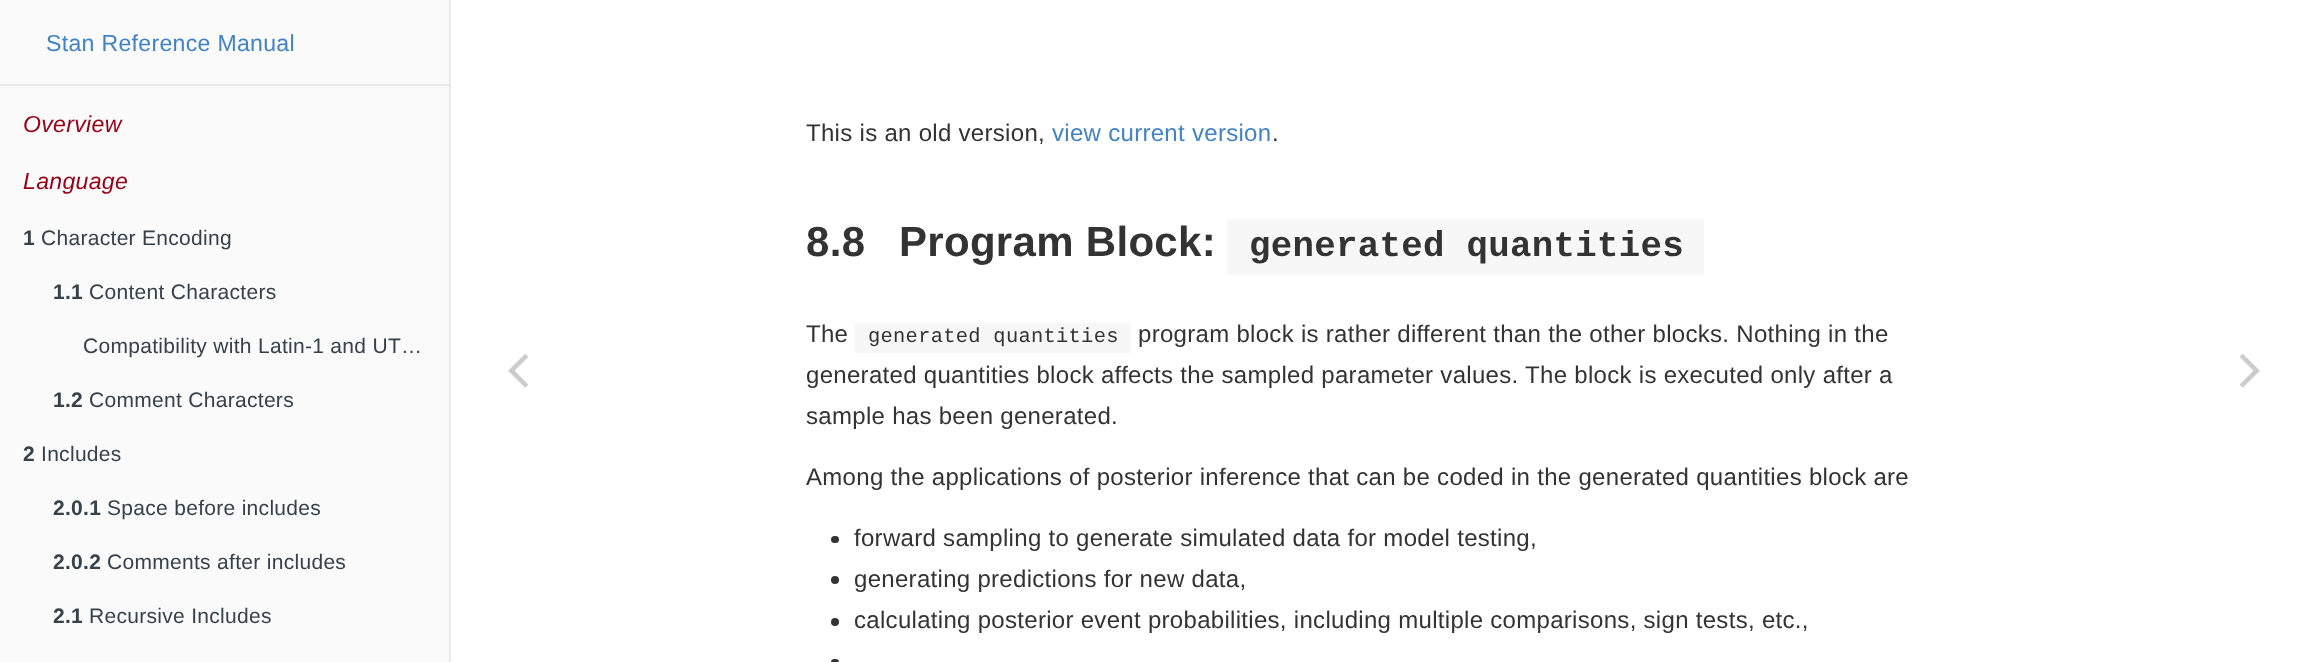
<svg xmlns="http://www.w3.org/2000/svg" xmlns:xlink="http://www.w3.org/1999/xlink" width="2317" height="662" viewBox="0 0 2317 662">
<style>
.cls-1{font:23.1px Liberation Sans;letter-spacing:0.3px;fill:#4183c4}
.cls-2{font:italic 23.1px Liberation Sans;letter-spacing:0.3px;fill:#990017}
.cls-3{font:bold 21px Liberation Sans;letter-spacing:0.3px;fill:#364149}
.cls-4{font:21px Liberation Sans;letter-spacing:0.3px;fill:#364149}
.cls-5{font:24px Liberation Sans;letter-spacing:0.3px;fill:#333333}
.cls-6{font:24px Liberation Sans;letter-spacing:0.3px;fill:#4183c4}
.cls-7{font:bold 42px Liberation Sans;letter-spacing:0.3px;fill:#333333}
.cls-8{font:bold 35.75px Liberation Mono;letter-spacing:0.3px;fill:#333333}
.cls-9{font:20.4px Liberation Mono;letter-spacing:0.3px;fill:#333333}
</style>
<rect width="100%" height="100%" fill="#ffffff"/>
<rect fill="#ededed" x="450" y="0" width="1" height="662"/>
<rect fill="#fafafa" x="0" y="0" width="449" height="662"/>
<rect fill="#e8e8e8" x="449" y="0" width="1" height="662"/>
<rect fill="#e9e9e9" x="0" y="84" width="449" height="2"/>
<image xlink:href="image0.png" x="508" y="354" width="20" height="34"/>
<rect fill="#f7f7f7" x="1227" y="219" width="477" height="56"/>
<rect fill="#f7f7f7" x="855" y="323" width="276" height="30"/>
<rect fill="#333333" x="831" y="536" width="8" height="7" rx="3.5"/>
<circle fill="#333333" cx="835" cy="580" r="4"/>
<circle fill="#333333" cx="835" cy="622" r="4"/>
<rect fill="#333333" x="831" y="659" width="8" height="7" rx="3.5"/>
<image xlink:href="image1.png" x="2240" y="354" width="20" height="34"/>
<text class="cls-1" x="46" y="51">Stan Reference Manual</text>
<text class="cls-2" x="23" y="132">Overview</text>
<text class="cls-2" x="23" y="189">Language</text>
<text class="cls-3" x="23" y="245">1</text>
<text class="cls-4" x="41" y="245">Character Encoding</text>
<text class="cls-3" x="53" y="299">1.1</text>
<text class="cls-4" x="89" y="299">Content Characters</text>
<text class="cls-4" x="83" y="353">Compatibility with Latin-1 and UT…</text>
<text class="cls-3" x="53" y="407">1.2</text>
<text class="cls-4" x="89" y="407">Comment Characters</text>
<text class="cls-3" x="23" y="461">2</text>
<text class="cls-4" x="41" y="461">Includes</text>
<text class="cls-3" x="53" y="515">2.0.1</text>
<text class="cls-4" x="107" y="515">Space before includes</text>
<text class="cls-3" x="53" y="569">2.0.2</text>
<text class="cls-4" x="107" y="569">Comments after includes</text>
<text class="cls-3" x="53" y="623">2.1</text>
<text class="cls-4" x="89" y="623">Recursive Includes</text>
<text class="cls-5" x="806" y="141">This is an old version,</text>
<text class="cls-6" x="1052" y="141">view current version</text>
<text class="cls-5" x="1272" y="141">.</text>
<text class="cls-7" x="806" y="256">8.8</text>
<text class="cls-7" x="899" y="256">Program Block:</text>
<text class="cls-8" x="1249" y="256">generated quantities</text>
<text class="cls-5" x="806" y="342">The</text>
<text class="cls-9" x="868" y="342">generated quantities</text>
<text class="cls-5" x="1138" y="342">program block is rather different than the other blocks. Nothing in the</text>
<text class="cls-5"><tspan x="806" y="383">generated quantities block affects the sampled parameter values. The block is executed only after a</tspan><tspan x="806" y="424">sample has been generated.</tspan></text>
<text class="cls-5" x="806" y="485">Among the applications of posterior inference that can be coded in the generated quantities block are</text>
<text class="cls-5"><tspan x="854" y="546">forward sampling to generate simulated data for model testing,</tspan><tspan x="854" y="587">generating predictions for new data,</tspan><tspan x="854" y="628">calculating posterior event probabilities, including multiple comparisons, sign tests, etc.,</tspan></text>
</svg>
